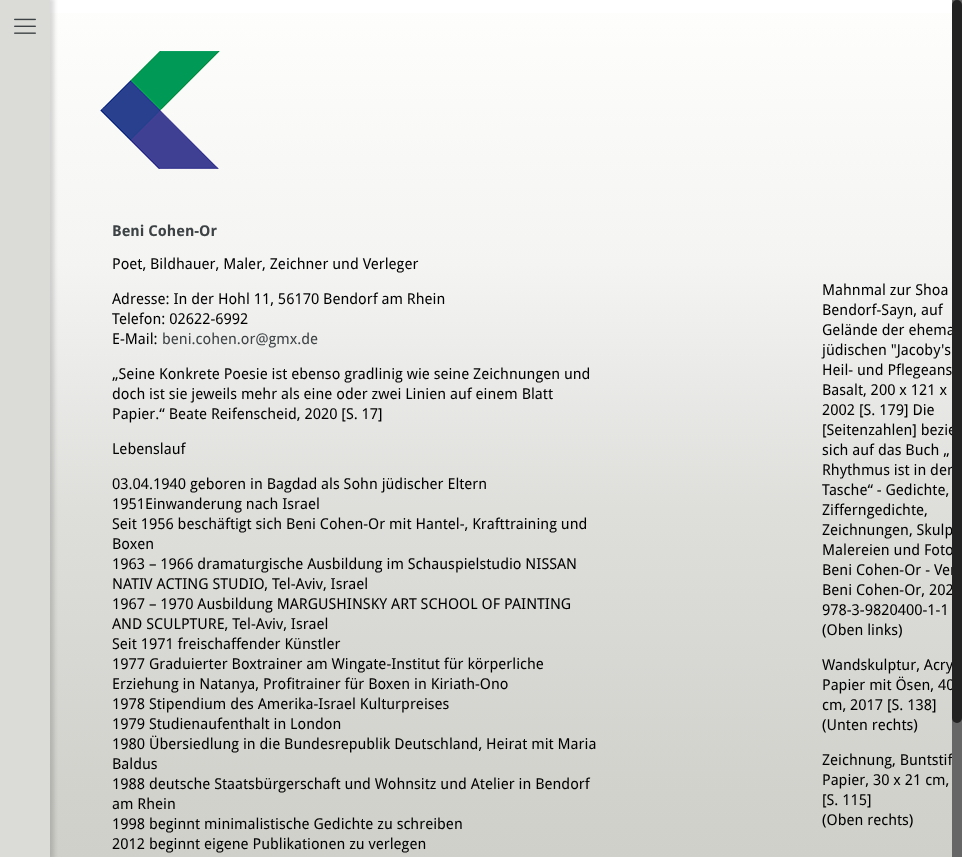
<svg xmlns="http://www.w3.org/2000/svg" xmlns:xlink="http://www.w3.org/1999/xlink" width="962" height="857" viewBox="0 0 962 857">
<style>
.cls-1{font:bold 15px Droid Sans;fill:#3d4244}
.cls-2{font:15px Droid Sans;fill:#000000}
.cls-3{font:15px Droid Sans;fill:#3d4244}
</style>
<defs>
<linearGradient id="g1" gradientUnits="userSpaceOnUse" x1="510" y1="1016" x2="510" y2="0"><stop offset="0" stop-color="#cacbc5"/><stop offset="0.22" stop-color="#d1d2cc"/><stop offset="0.5" stop-color="#dedfdb"/><stop offset="0.74" stop-color="#f4f4f3"/><stop offset="1" stop-color="#fefefd"/></linearGradient>
</defs>
<rect width="100%" height="100%" fill="#ffffff"/>
<rect fill="url(#g1)" x="50" y="13" width="902" height="844"/>
<rect fill="#000000" fill-opacity="0.15" filter="blur(2px)" x="-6" y="-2" width="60" height="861"/>
<rect fill="#dbdcd7" x="0" y="0" width="50" height="857"/>
<image xlink:href="image0.png" x="14" y="18" width="22" height="16"/>
<image xlink:href="image1.png" x="100" y="51" width="120" height="118"/>
<text class="cls-1" x="112" y="236">Beni Cohen-Or</text>
<text class="cls-2" x="112" y="269">Poet, Bildhauer, Maler, Zeichner und Verleger</text>
<text class="cls-2"><tspan x="112" y="304">Adresse: In der Hohl 11, 56170 Bendorf am Rhein</tspan><tspan x="112" y="324">Telefon: 02622-6992</tspan><tspan x="112" y="344">E-Mail:</tspan></text>
<text class="cls-3" x="162" y="344">beni.cohen.or@gmx.de</text>
<text class="cls-2"><tspan x="112" y="379">„Seine Konkrete Poesie ist ebenso gradlinig wie seine Zeichnungen und</tspan><tspan x="112" y="399">doch ist sie jeweils mehr als eine oder zwei Linien auf einem Blatt</tspan><tspan x="112" y="419">Papier.“ Beate Reifenscheid, 2020 [S. 17]</tspan></text>
<text class="cls-2" x="112" y="454">Lebenslauf</text>
<text class="cls-2"><tspan x="112" y="489">03.04.1940 geboren in Bagdad als Sohn jüdischer Eltern</tspan><tspan x="112" y="509">1951Einwanderung nach Israel</tspan><tspan x="112" y="529">Seit 1956 beschäftigt sich Beni Cohen-Or mit Hantel-, Krafttraining und</tspan><tspan x="112" y="549">Boxen</tspan><tspan x="112" y="569">1963 – 1966 dramaturgische Ausbildung im Schauspielstudio NISSAN</tspan><tspan x="112" y="589">NATIV ACTING STUDIO, Tel-Aviv, Israel</tspan><tspan x="112" y="609">1967 – 1970 Ausbildung MARGUSHINSKY ART SCHOOL OF PAINTING</tspan><tspan x="112" y="629">AND SCULPTURE, Tel-Aviv, Israel</tspan><tspan x="112" y="649">Seit 1971 freischaffender Künstler</tspan><tspan x="112" y="669">1977 Graduierter Boxtrainer am Wingate-Institut für körperliche</tspan><tspan x="112" y="689">Erziehung in Natanya, Profitrainer für Boxen in Kiriath-Ono</tspan><tspan x="112" y="709">1978 Stipendium des Amerika-Israel Kulturpreises</tspan><tspan x="112" y="729">1979 Studienaufenthalt in London</tspan><tspan x="112" y="749">1980 Übersiedlung in die Bundesrepublik Deutschland, Heirat mit Maria</tspan><tspan x="112" y="769">Baldus</tspan><tspan x="112" y="789">1988 deutsche Staatsbürgerschaft und Wohnsitz und Atelier in Bendorf</tspan><tspan x="112" y="809">am Rhein</tspan><tspan x="112" y="829">1998 beginnt minimalistische Gedichte zu schreiben</tspan><tspan x="112" y="849">2012 beginnt eigene Publikationen zu verlegen</tspan></text>
<text class="cls-2"><tspan x="822" y="295">Mahnmal zur Shoa</tspan><tspan x="822" y="315">Bendorf-Sayn, auf</tspan><tspan x="822" y="335">Gelände der ehema</tspan><tspan x="822" y="355">jüdischen "Jacoby's</tspan><tspan x="822" y="375">Heil- und Pflegeans</tspan><tspan x="822" y="395">Basalt, 200 x 121 x</tspan><tspan x="822" y="415">2002 [S. 179] Die</tspan><tspan x="822" y="435">[Seitenzahlen] bezie</tspan><tspan x="822" y="455">sich auf das Buch „</tspan><tspan x="822" y="475">Rhythmus ist in der</tspan><tspan x="822" y="495">Tasche“ - Gedichte,</tspan><tspan x="822" y="515">Zifferngedichte,</tspan><tspan x="822" y="535">Zeichnungen, Skulp</tspan><tspan x="822" y="555">Malereien und Foto</tspan><tspan x="822" y="575">Beni Cohen-Or - Ver</tspan><tspan x="822" y="595">Beni Cohen-Or, 202</tspan><tspan x="822" y="615">978-3-9820400-1-1</tspan><tspan x="822" y="635">(Oben links)</tspan></text>
<text class="cls-2"><tspan x="822" y="670">Wandskulptur, Acry</tspan><tspan x="822" y="690">Papier mit Ösen, 40</tspan><tspan x="822" y="710">cm, 2017 [S. 138]</tspan><tspan x="822" y="730">(Unten rechts)</tspan></text>
<text class="cls-2"><tspan x="822" y="765">Zeichnung, Buntstif</tspan><tspan x="822" y="785">Papier, 30 x 21 cm,</tspan><tspan x="822" y="805">[S. 115]</tspan><tspan x="822" y="825">(Oben rechts)</tspan></text>
<rect fill="#666666" x="952" y="0" width="10" height="857"/>
<rect fill="#222222" x="952" y="0" width="10" height="723" rx="5"/>
</svg>
